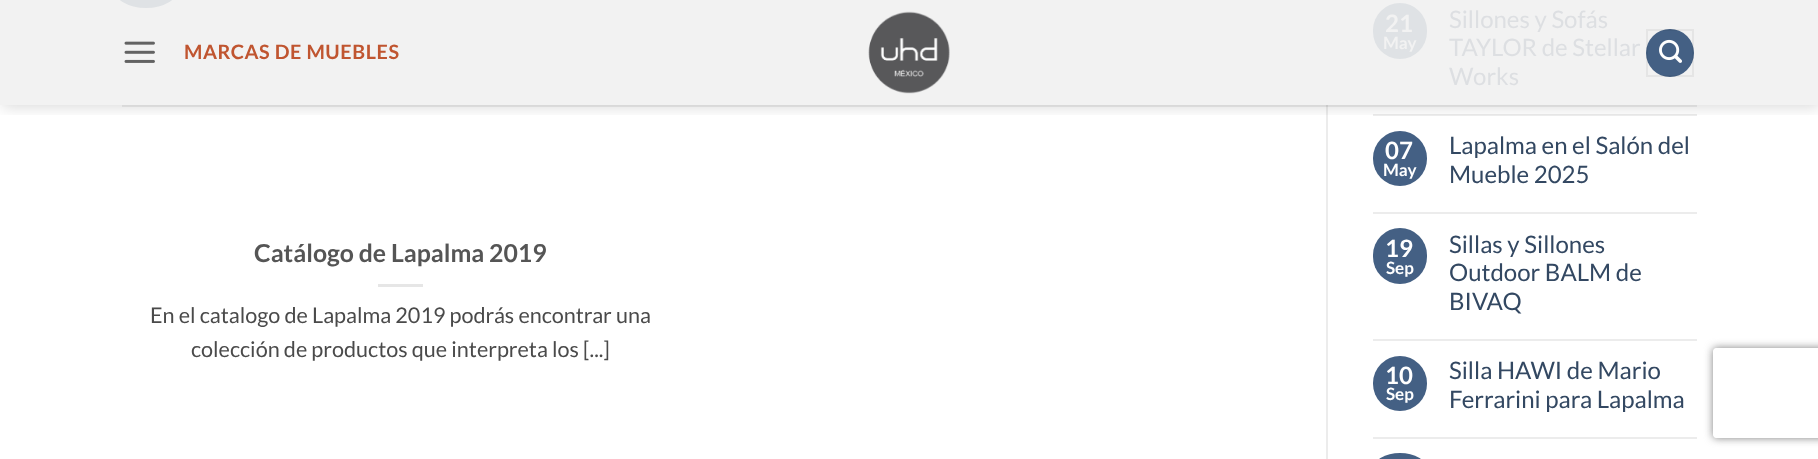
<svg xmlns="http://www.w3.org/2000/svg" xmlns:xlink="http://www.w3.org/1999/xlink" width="1818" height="459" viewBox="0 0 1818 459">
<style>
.cls-1{font:bold 24.8px Lato;fill:#555555}
.cls-2{font:21.6px Lato;fill:#4a4a4a}
.cls-3{font:bold 24px Lato;fill:#f2f2f2}
.cls-4{font:bold 17px Lato;fill:#f2f2f2}
.cls-5{font:24px Lato;fill:#dddfe2}
.cls-6{font:bold 24px Lato;fill:#ffffff}
.cls-7{font:bold 17px Lato;fill:#ffffff}
.cls-8{font:24px Lato;fill:#334862}
.cls-9{font:bold 19.75px Lato;letter-spacing:0.6px;fill:#c05530}
</style>
<defs>
<clipPath id="clip1"><rect x="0" y="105" width="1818" height="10"/></clipPath>
<clipPath id="clip2"><path d="M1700 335H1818V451H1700ZM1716 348H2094C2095.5 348 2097 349.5 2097 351V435C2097 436.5 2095.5 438 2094 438H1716C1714.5 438 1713 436.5 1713 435V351C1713 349.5 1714.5 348 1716 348Z" clip-rule="evenodd"/></clipPath>
</defs>
<rect width="100%" height="100%" fill="#ffffff"/>
<rect fill="#f2f2f2" x="0" y="0" width="1818" height="105"/>
<rect fill="#dfe2e5" x="113" y="-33" width="66" height="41" rx="33"/>
<rect fill="#e6e6e6" x="378" y="284" width="45" height="3"/>
<rect fill="#ececec" x="1326" y="105" width="2" height="354"/>
<rect fill="#dfe2e5" x="1373" y="3" width="54" height="56" rx="27"/>
<rect fill="#ececec" x="1373" y="114" width="324" height="2"/>
<rect fill="#446084" x="1373" y="131" width="54" height="55" rx="27"/>
<rect fill="#ececec" x="1373" y="212" width="324" height="2"/>
<rect fill="#446084" x="1373" y="228" width="54" height="56" rx="27"/>
<rect fill="#ececec" x="1373" y="339" width="324" height="2"/>
<rect fill="#446084" x="1373" y="356" width="54" height="55" rx="27"/>
<rect fill="#ececec" x="1373" y="437" width="324" height="2"/>
<rect fill="#446084" x="1373" y="453" width="54" height="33" rx="27"/>
<g clip-path="url(#clip1)">
<rect fill="#000000" fill-opacity="0.15" filter="blur(7.5px)" x="2" y="2" width="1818" height="105"/>
</g>
<image xlink:href="image0.png" x="124" y="41" width="31" height="22"/>
<image xlink:href="image1.png" x="868" y="11" width="82" height="83"/>
<circle fill="#446084" cx="1670" cy="53" r="24"/>
<rect fill="none" stroke="#000000" stroke-opacity="0.05" stroke-width="2" x="1647" y="30" width="46" height="46"/>
<image xlink:href="image2.png" x="1659" y="39" width="23" height="24"/>
<rect fill="#4a4a4a" fill-opacity="0.1" x="122" y="105" width="1575" height="2"/>
<g clip-path="url(#clip2)">
<rect fill="#808080" filter="blur(4px)" x="1713" y="348" width="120" height="90" rx="3"/>
</g>
<text class="cls-1" x="254" y="262">Catálogo de Lapalma 2019</text>
<text class="cls-2" x="150" y="323">En el catalogo de Lapalma 2019 podrás encontrar una</text>
<text class="cls-2" x="191" y="357">colección de productos que interpreta los [...]</text>
<text class="cls-3" x="1385" y="32">21</text>
<text class="cls-4" x="1383" y="49">May</text>
<text class="cls-5"><tspan x="1449" y="28">Sillones y Sofás</tspan><tspan x="1449" y="56">TAYLOR de Stellar</tspan><tspan x="1449" y="85">Works</tspan></text>
<text class="cls-6" x="1385" y="159">07</text>
<text class="cls-7" x="1383" y="176">May</text>
<text class="cls-8"><tspan x="1449" y="154">Lapalma en el Salón del</tspan><tspan x="1449" y="183">Mueble 2025</tspan></text>
<text class="cls-6" x="1385" y="257">19</text>
<text class="cls-7" x="1386" y="274">Sep</text>
<text class="cls-8"><tspan x="1449" y="253">Sillas y Sillones</tspan><tspan x="1449" y="281">Outdoor BALM de</tspan><tspan x="1449" y="310">BIVAQ</tspan></text>
<text class="cls-6" x="1385" y="384">10</text>
<text class="cls-7" x="1386" y="400">Sep</text>
<text class="cls-8"><tspan x="1449" y="379">Silla HAWI de Mario</tspan><tspan x="1449" y="408">Ferrarini para Lapalma</tspan></text>
<text class="cls-9" x="184" y="59">MARCAS DE MUEBLES</text>
</svg>
